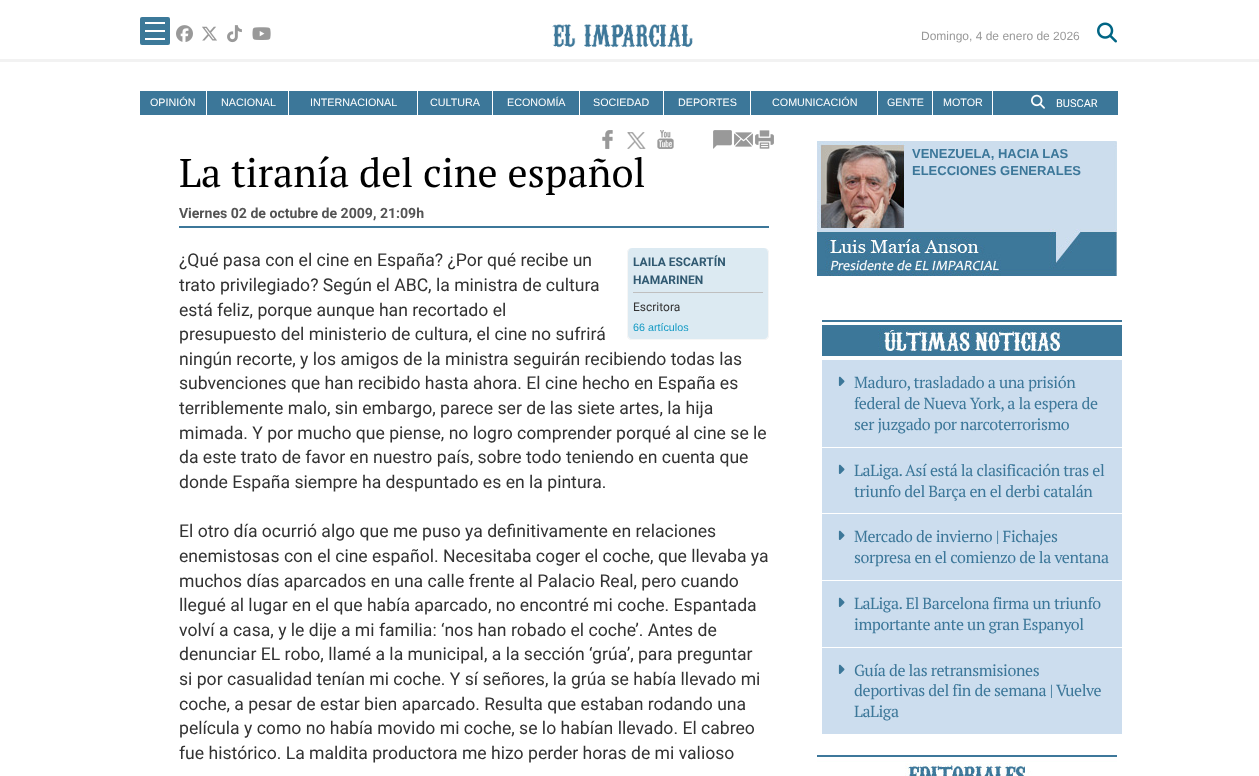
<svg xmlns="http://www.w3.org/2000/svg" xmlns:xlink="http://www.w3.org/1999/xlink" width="1259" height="776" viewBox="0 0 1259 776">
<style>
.cls-1{font:12px Liberation Sans;fill:#999999}
.cls-2{font:10.75px Liberation Sans;fill:#ffffff}
.cls-3{font:11px Roboto;fill:#ffffff}
.cls-4{font:40px PT Serif;fill:#000000}
.cls-5{font:bold 14.1px Noto Sans;fill:#545454}
.cls-6{font:bold 14.1px Roboto;fill:#545454}
.cls-7{font:17.6px Roboto;fill:#323232}
.cls-8{font:bold 12px Roboto;fill:#305971}
.cls-9{font:12px Roboto;fill:#323232}
.cls-10{font:10.75px Liberation Sans;fill:#139ac4}
.cls-11{font:bold 13px Liberation Sans;fill:#3c7799}
.cls-12{font:16px PT Serif;letter-spacing:-0.4px;fill:#3c7799}
</style>
<rect width="100%" height="100%" fill="#ffffff"/>
<rect fill="#000000" fill-opacity="0.5" filter="blur(0.5px)" x="0" y="0" width="1259" height="62"/>
<rect fill="#ffffff" x="0" y="0" width="1259" height="59"/>
<rect fill="#f2f2f2" x="0" y="59" width="1259" height="3"/>
<rect fill="#3c7999" x="140" y="17" width="30" height="28" rx="2"/>
<rect fill="#ffffff" x="145" y="22" width="20" height="2"/>
<rect fill="#ffffff" x="145" y="30" width="20" height="2"/>
<rect fill="#ffffff" x="145" y="38" width="20" height="2"/>
<image xlink:href="image0.png" x="176" y="25" width="17" height="17"/>
<image xlink:href="image1.png" x="202" y="26" width="15" height="15"/>
<image xlink:href="image2.png" x="227" y="25" width="15" height="18"/>
<image xlink:href="image3.png" x="252" y="27" width="19" height="13"/>
<image xlink:href="image4.png" x="552" y="24" width="141" height="24"/>
<image xlink:href="image5.png" x="1097" y="22" width="20" height="21"/>
<rect fill="#3c7799" x="140" y="91" width="66" height="24"/>
<rect fill="#3c7799" x="207" y="91" width="81" height="24"/>
<rect fill="#3c7799" x="289" y="91" width="128" height="24"/>
<rect fill="#3c7799" x="418" y="91" width="74" height="24"/>
<rect fill="#3c7799" x="493" y="91" width="86" height="24"/>
<rect fill="#3c7799" x="580" y="91" width="83" height="24"/>
<rect fill="#3c7799" x="664" y="91" width="86" height="24"/>
<rect fill="#3c7799" x="751" y="91" width="126" height="24"/>
<rect fill="#3c7799" x="878" y="91" width="54" height="24"/>
<rect fill="#3c7799" x="933" y="91" width="59" height="24"/>
<rect fill="#3c7799" x="993" y="91" width="125" height="24"/>
<image xlink:href="image6.png" x="1031" y="94" width="14" height="15"/>
<rect fill="#3c7799" x="179" y="226" width="590" height="2"/>
<image xlink:href="image7.png" x="602" y="130" width="11" height="19"/>
<image xlink:href="image8.png" x="627" y="132" width="19" height="17"/>
<image xlink:href="image9.png" x="657" y="130" width="17" height="19"/>
<image xlink:href="image10.png" x="713" y="130" width="19" height="19"/>
<image xlink:href="image11.png" x="734" y="132" width="19" height="15"/>
<image xlink:href="image12.png" x="755" y="130" width="19" height="19"/>
<rect fill="#dceaf2" x="627" y="248" width="142" height="92" rx="5"/>
<path fill="#f6f6f6" fill-rule="evenodd" d="M632 248H764C767 248 769 250 769 253V335C769 338 767 340 764 340H632C629 340 627 338 627 335V253C627 250 629 248 632 248ZM632 248H764C766 248 768 250 768 253V335C768 337 766 339 764 339H632C630 339 628 337 628 335V253C628 250 630 248 632 248Z"/>
<rect fill="#bfbfbf" x="633" y="292" width="130" height="1"/>
<image xlink:href="image13.png" x="817" y="141" width="300" height="135"/>
<rect fill="#ccddee" x="822" y="360" width="300" height="374"/>
<image xlink:href="image14.png" x="822" y="320" width="300" height="36"/>
<image xlink:href="image15.png" x="838" y="376" width="7" height="10"/>
<rect fill="#ffffff" x="822" y="447" width="300" height="1"/>
<image xlink:href="image15.png" x="838" y="464" width="7" height="10"/>
<rect fill="#ffffff" x="822" y="513" width="300" height="1"/>
<image xlink:href="image15.png" x="838" y="530" width="7" height="10"/>
<rect fill="#ffffff" x="822" y="580" width="300" height="1"/>
<image xlink:href="image15.png" x="838" y="597" width="7" height="10"/>
<rect fill="#ffffff" x="822" y="647" width="300" height="1"/>
<image xlink:href="image15.png" x="838" y="664" width="7" height="10"/>
<image xlink:href="image16.png" x="817" y="755" width="300" height="21"/>
<text class="cls-1" x="921" y="40">Domingo, 4 de enero de 2026</text>
<text class="cls-2" x="150" y="106">OPINIÓN</text>
<text class="cls-2" x="221" y="106">NACIONAL</text>
<text class="cls-2" x="310" y="106">INTERNACIONAL</text>
<text class="cls-2" x="430" y="106">CULTURA</text>
<text class="cls-2" x="507" y="106">ECONOMÍA</text>
<text class="cls-2" x="593" y="106">SOCIEDAD</text>
<text class="cls-2" x="678" y="106">DEPORTES</text>
<text class="cls-2" x="772" y="106">COMUNICACIÓN</text>
<text class="cls-2" x="887" y="106">GENTE</text>
<text class="cls-2" x="943" y="106">MOTOR</text>
<text class="cls-3" x="1056" y="107">BUSCAR</text>
<text class="cls-4" x="179" y="187">La tiranía del cine español</text>
<text class="cls-5" x="179" y="218">V</text>
<text class="cls-6" x="188" y="218">iernes 02 de octubre de 2009, 21:09h</text>
<text class="cls-7" x="179" y="266">¿Qué pasa con el cine en España? ¿Por qué recibe un</text>
<text class="cls-8"><tspan x="633" y="266">LAILA ESCARTÍN</tspan><tspan x="633" y="284">HAMARINEN</tspan></text>
<text class="cls-9" x="633" y="311">Escritora</text>
<text class="cls-10" x="633" y="331">66 artículos</text>
<text class="cls-7"><tspan x="179" y="291">trato privilegiado? Según el ABC, la ministra de cultura</tspan><tspan x="179" y="316">está feliz, porque aunque han recortado el</tspan><tspan x="179" y="340">presupuesto del ministerio de cultura, el cine no sufrirá</tspan><tspan x="179" y="365">ningún recorte, y los amigos de la ministra seguirán recibiendo todas las</tspan><tspan x="179" y="389">subvenciones que han recibido hasta ahora. El cine hecho en España es</tspan><tspan x="179" y="414">terriblemente malo, sin embargo, parece ser de las siete artes, la hija</tspan><tspan x="179" y="439">mimada. Y por mucho que piense, no logro comprender porqué al cine se le</tspan><tspan x="179" y="463">da este trato de favor en nuestro país, sobre todo teniendo en cuenta que</tspan><tspan x="179" y="488">donde España siempre ha despuntado es en la pintura.</tspan></text>
<text class="cls-7"><tspan x="179" y="537">El otro día ocurrió algo que me puso ya definitivamente en relaciones</tspan><tspan x="179" y="562">enemistosas con el cine español. Necesitaba coger el coche, que llevaba ya</tspan><tspan x="179" y="587">muchos días aparcados en una calle frente al Palacio Real, pero cuando</tspan><tspan x="179" y="611">llegué al lugar en el que había aparcado, no encontré mi coche. Espantada</tspan><tspan x="179" y="636">volví a casa, y le dije a mi familia: ‘nos han robado el coche’. Antes de</tspan><tspan x="179" y="660">denunciar EL robo, llamé a la municipal, a la sección ‘grúa’, para preguntar</tspan><tspan x="179" y="685">si por casualidad tenían mi coche. Y sí señores, la grúa se había llevado mi</tspan><tspan x="179" y="710">coche, a pesar de estar bien aparcado. Resulta que estaban rodando una</tspan><tspan x="179" y="734">película y como no había movido mi coche, se lo habían llevado. El cabreo</tspan><tspan x="179" y="759">fue histórico. La maldita productora me hizo perder horas de mi valioso</tspan></text>
<text class="cls-11"><tspan x="912" y="158">VENEZUELA, HACIA LAS</tspan><tspan x="912" y="175">ELECCIONES GENERALES</tspan></text>
<text class="cls-12"><tspan x="854" y="388">Maduro, trasladado a una prisión</tspan><tspan x="854" y="409">federal de Nueva York, a la espera de</tspan><tspan x="854" y="430">ser juzgado por narcoterrorismo</tspan></text>
<text class="cls-12" x="854" y="476">LaLiga.</text>
<text class="cls-12" x="905" y="476">Así está la clasificación tras el</text>
<text class="cls-12" x="854" y="497">triunfo del Barça en el derbi catalán</text>
<text class="cls-12"><tspan x="854" y="542">Mercado de invierno | Fichajes</tspan><tspan x="854" y="563">sorpresa en el comienzo de la ventana</tspan></text>
<text class="cls-12"><tspan x="854" y="609">LaLiga. El Barcelona firma un triunfo</tspan><tspan x="854" y="630">importante ante un gran Espanyol</tspan></text>
<text class="cls-12"><tspan x="854" y="676">Guía de las retransmisiones</tspan><tspan x="854" y="696">deportivas del fin de semana |</tspan></text>
<text class="cls-12" x="1056" y="696">Vuelve</text>
<text class="cls-12" x="854" y="717">LaLiga</text>
</svg>
